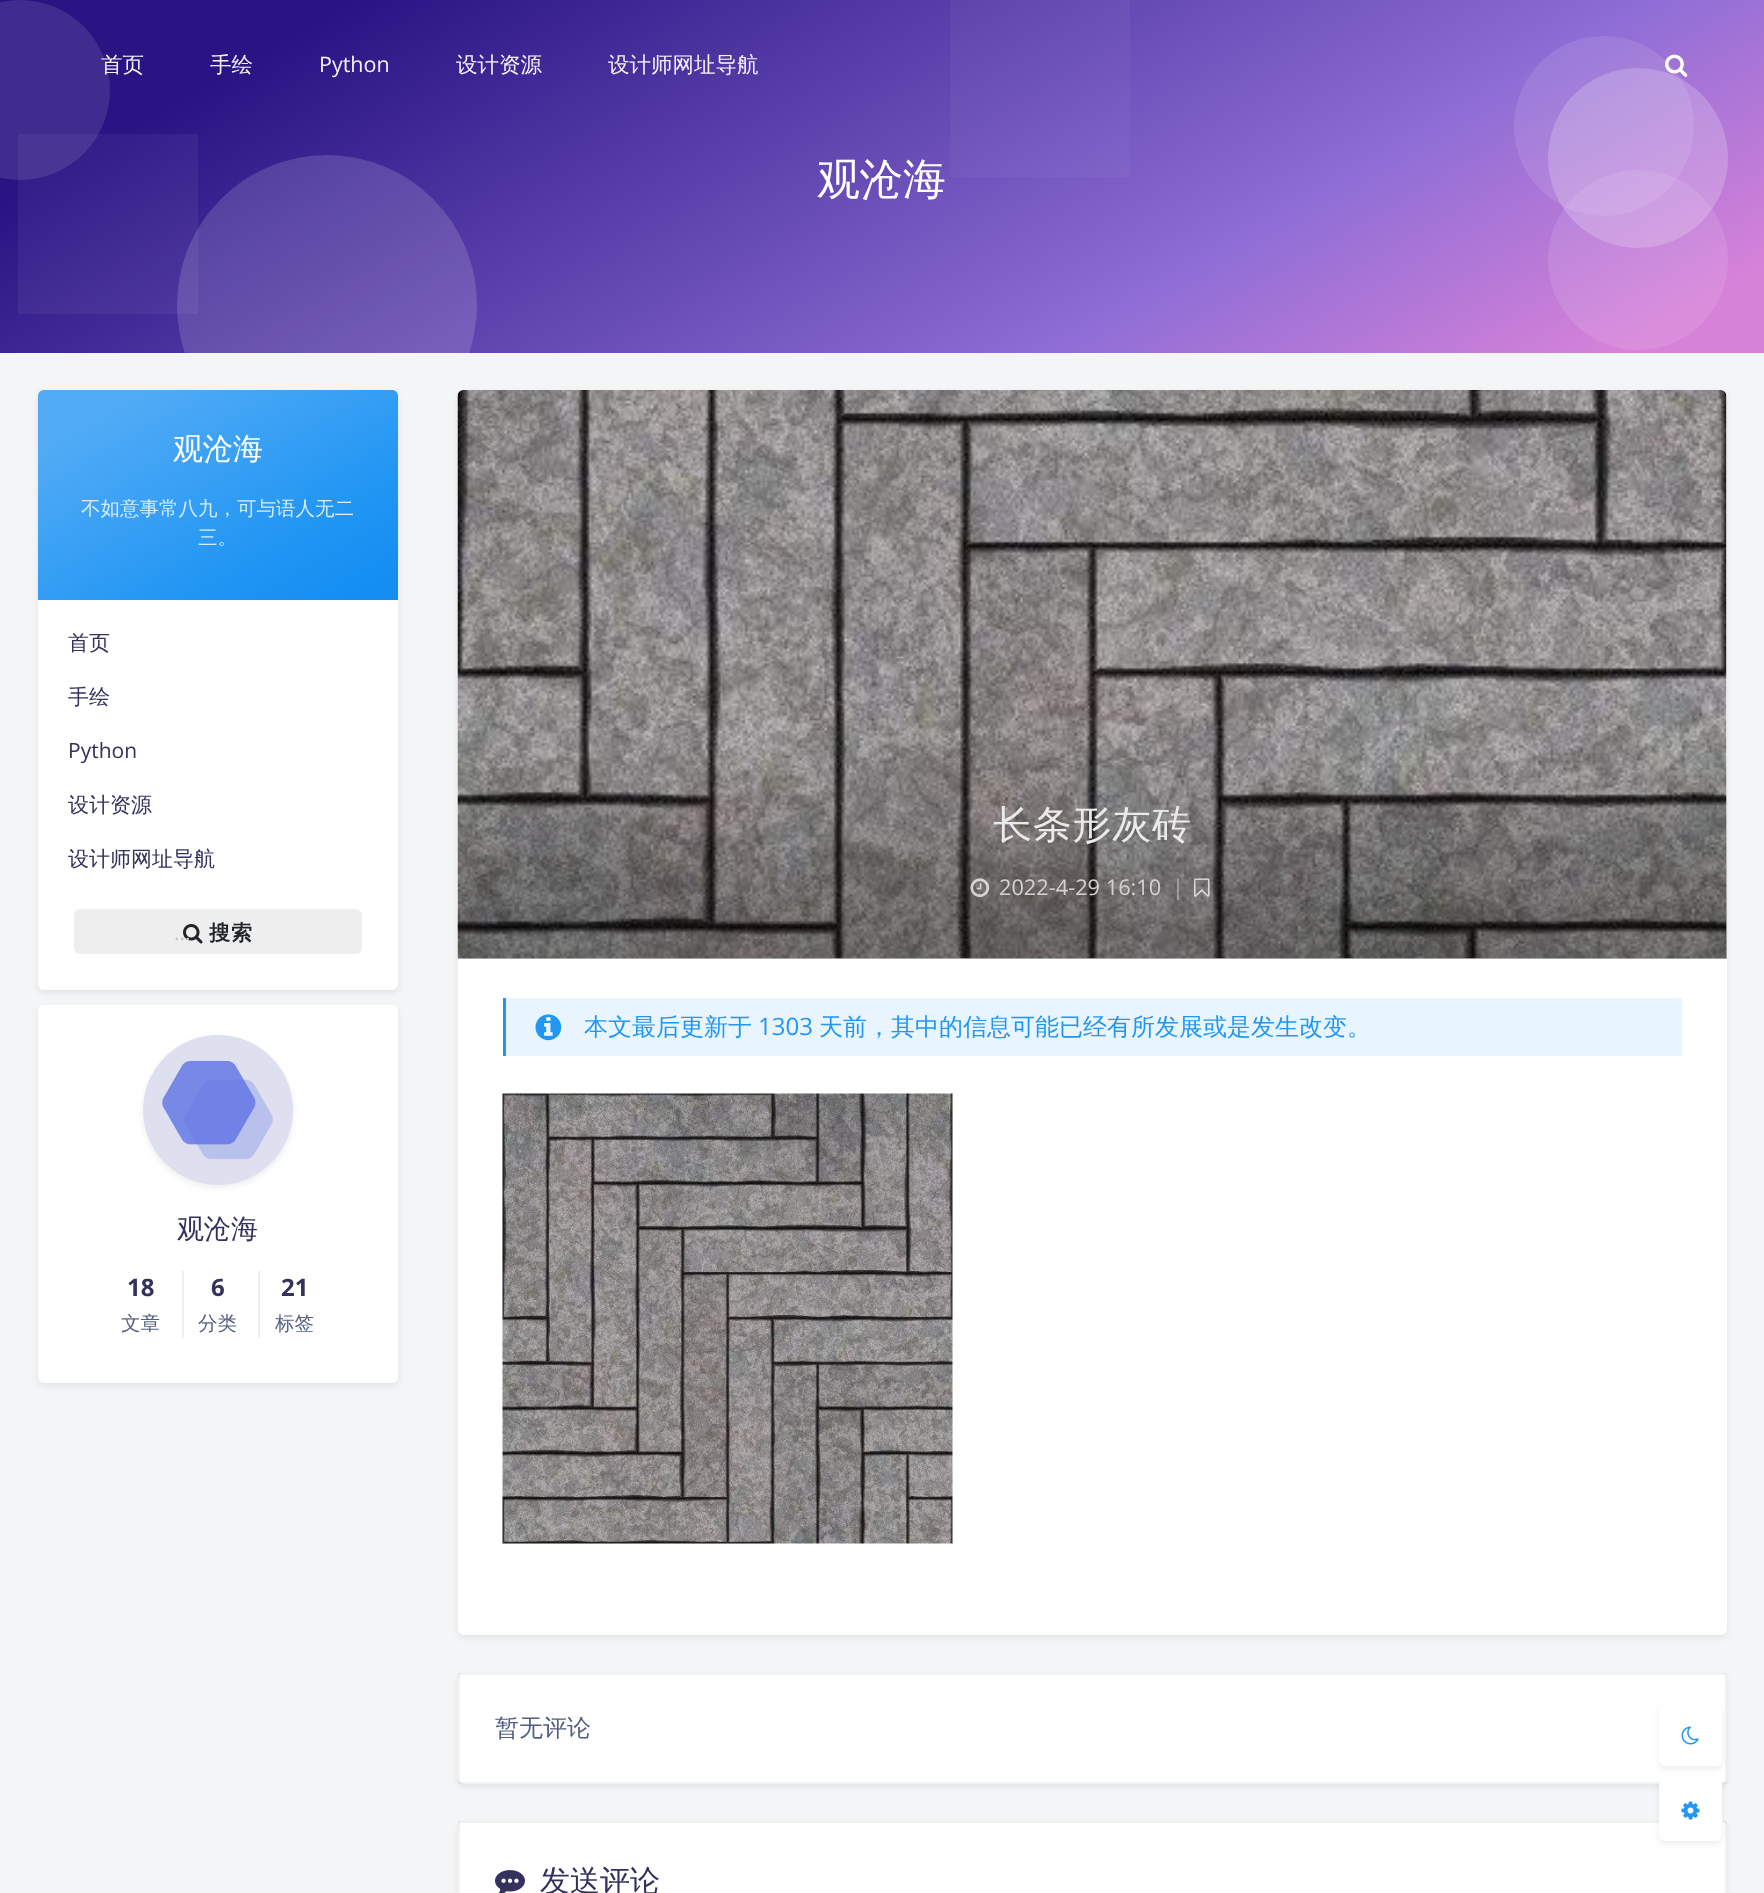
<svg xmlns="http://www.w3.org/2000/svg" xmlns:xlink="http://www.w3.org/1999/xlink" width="1764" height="1893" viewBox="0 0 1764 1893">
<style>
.cls-1{font:500 21.5px WenQuanYi Zen Hei;fill:#f4f3f9}
.cls-2{font:21.5px Open Sans;fill:#f4f3f9}
.cls-3{font:500 43px WenQuanYi Zen Hei;fill:#ffffff}
.cls-4{font:500 30px WenQuanYi Zen Hei;fill:#ffffff}
.cls-5{font:500 19.5px WenQuanYi Zen Hei;fill:#d6ebfd}
.cls-6{font:500 21px WenQuanYi Zen Hei;fill:#32325d}
.cls-7{font:21px Open Sans;fill:#32325d}
.cls-8{font:21px Open Sans;fill:#c1c2c3}
.cls-9{font:bold 21px WenQuanYi Zen Hei;letter-spacing:1px;fill:#212529}
.cls-10{font:500 27px WenQuanYi Zen Hei;fill:#32325d}
.cls-11{font:bold 24px Open Sans;fill:#32325d}
.cls-12{font:500 19.5px WenQuanYi Zen Hei;fill:#525f82}
.cls-13{font:500 39px WenQuanYi Zen Hei;letter-spacing:0.75px;fill:#ebeaea}
.cls-14{font:21.75px Open Sans;fill:#d4d3d2}
.cls-15{font:21.75px Open Sans;fill:#aeacac}
.cls-16{font:500 24px WenQuanYi Zen Hei;fill:#2196f3}
.cls-17{font:24px Open Sans;fill:#2196f3}
.cls-18{font:500 24px WenQuanYi Zen Hei;fill:#525f82}
.cls-19{font:500 30px WenQuanYi Zen Hei;fill:#32325d}
</style>
<defs>
<linearGradient id="g1" gradientUnits="userSpaceOnUse" x1="585" y1="-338" x2="1179" y2="690"><stop offset="0.15" stop-color="#281483"/><stop offset="0.7" stop-color="#8f6ed5"/><stop offset="0.94" stop-color="#d782d9"/></linearGradient>
<clipPath id="clip1"><rect x="0" y="0" width="1764" height="353"/></clipPath>
<linearGradient id="g2" gradientUnits="userSpaceOnUse" x1="127" y1="338" x2="308" y2="652"><stop offset="0.15" stop-color="#51abf6"/><stop offset="0.7" stop-color="#2196f3"/><stop offset="0.94" stop-color="#148ef3"/></linearGradient>
<clipPath id="clip2"><path d="M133 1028H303V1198H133ZM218 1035C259.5 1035 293 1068.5 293 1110C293 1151.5 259.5 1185 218 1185C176.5 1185 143 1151.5 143 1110C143 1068.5 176.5 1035 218 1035Z" clip-rule="evenodd"/></clipPath>
<linearGradient id="g3" gradientUnits="userSpaceOnUse" x1="1092" y1="959" x2="1092" y2="743"><stop offset="0.2" stop-color="#000000" stop-opacity="0.27"/><stop offset="1" stop-color="#000000" stop-opacity="0"/></linearGradient>
</defs>
<rect width="100%" height="100%" fill="#f4f5f7"/>
<rect fill="url(#g1)" x="0" y="0" width="1764" height="353"/>
<circle fill="#ffffff" fill-opacity="0.1" cx="1604" cy="126" r="90"/>
<circle fill="#ffffff" fill-opacity="0.2" cx="1638" cy="158" r="90"/>
<image xlink:href="image0.png" x="1665" y="54" width="23" height="23"/>
<circle fill="#3e2c8f" cx="20" cy="90" r="90"/>
<rect fill="#ffffff" fill-opacity="0.04" x="950" y="0" width="180" height="177"/>
<rect fill="#ffffff" fill-opacity="0.05" x="18" y="134" width="180" height="180"/>
<g clip-path="url(#clip1)">
<circle fill="#ffffff" fill-opacity="0.15" cx="327" cy="305" r="150"/>
</g>
<circle fill="#ffffff" fill-opacity="0.1" cx="1638" cy="260" r="90"/>
<rect fill="#000000" fill-opacity="0.07" filter="blur(3px)" x="38" y="393" width="360" height="600" rx="6"/>
<rect fill="#ffffff" x="38" y="390" width="360" height="600" rx="6"/>
<path fill="url(#g2)" d="M44 390H392C395.5 390 398 392.5 398 396V600H38V396C38 392.5 40.5 390 44 390Z"/>
<rect fill="#eeeeee" x="74" y="909" width="288" height="45" rx="6"/>
<image xlink:href="image1.png" x="183" y="924" width="20" height="20"/>
<rect fill="#000000" fill-opacity="0.07" filter="blur(3px)" x="38" y="1008" width="360" height="378" rx="6"/>
<rect fill="#ffffff" x="38" y="1005" width="360" height="378" rx="6"/>
<g clip-path="url(#clip2)">
<rect fill="#000000" fill-opacity="0.07" filter="blur(3px)" x="143" y="1038" width="150" height="150" rx="75"/>
</g>
<circle fill="#7f7f7f" fill-opacity="0.1" cx="218" cy="1110" r="75"/>
<image xlink:href="image2.png" x="143" y="1035" width="150" height="150"/>
<rect fill="#eeeeee" x="182" y="1271" width="2" height="67"/>
<rect fill="#eeeeee" x="258" y="1271" width="2" height="67"/>
<rect fill="#000000" fill-opacity="0.07" filter="blur(3px)" x="458" y="393" width="1269" height="1245" rx="6"/>
<rect fill="#ffffff" x="458" y="390" width="1269" height="1245" rx="6"/>
<image xlink:href="image3.png" x="457" y="390" width="1270" height="569"/>
<rect fill="url(#g3)" x="458" y="757" width="1269" height="202"/>
<image xlink:href="image4.png" x="970" y="878" width="20" height="19"/>
<image xlink:href="image5.png" x="1194" y="878" width="16" height="19"/>
<rect fill="#e9f5fe" x="506" y="998" width="1176" height="58"/>
<rect fill="#2196f3" x="503" y="998" width="3" height="58"/>
<image xlink:href="image6.png" x="535" y="1014" width="27" height="27"/>
<image xlink:href="image7.png" x="502" y="1093" width="451" height="451"/>
<rect fill="#000000" fill-opacity="0.07" filter="blur(3px)" x="458" y="1676" width="1269" height="111" rx="6"/>
<rect fill="#ffffff" x="458" y="1673" width="1269" height="111" rx="6"/>
<rect fill="none" stroke="#000000" stroke-opacity="0.05" stroke-width="2" x="459" y="1674" width="1267" height="109"/>
<rect fill="#000000" fill-opacity="0.07" filter="blur(3px)" x="458" y="1824" width="1269" height="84" rx="6"/>
<rect fill="#ffffff" x="458" y="1821" width="1269" height="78" rx="6"/>
<rect fill="none" stroke="#000000" stroke-opacity="0.05" stroke-width="2" x="459" y="1822" width="1267" height="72"/>
<image xlink:href="image8.png" x="495" y="1870" width="30" height="23"/>
<rect fill="#000000" fill-opacity="0.07" filter="blur(3px)" x="1659" y="1706" width="63" height="63" rx="6"/>
<rect fill="#ffffff" x="1659" y="1703" width="63" height="63" rx="6"/>
<image xlink:href="image9.png" x="1681" y="1726" width="18" height="19"/>
<rect fill="#000000" fill-opacity="0.07" filter="blur(3px)" x="1659" y="1781" width="63" height="63" rx="6"/>
<rect fill="#ffffff" x="1659" y="1778" width="63" height="63" rx="6"/>
<image xlink:href="image10.png" x="1681" y="1801" width="19" height="19"/>
<text class="cls-1" x="101" y="72">首页</text>
<text class="cls-1" x="210" y="72">手绘</text>
<text class="cls-2" x="319" y="72">Python</text>
<text class="cls-1" x="456" y="72">设计资源</text>
<text class="cls-1" x="608" y="72">设计师网址导航</text>
<text class="cls-3" x="817" y="194">观沧海</text>
<text class="cls-4" x="173" y="459">观沧海</text>
<text class="cls-5" x="81" y="515">不如意事常八九，可与语人无二</text>
<text class="cls-5" x="198" y="544">三。</text>
<text class="cls-6" x="68" y="650">首页</text>
<text class="cls-6" x="68" y="704">手绘</text>
<text class="cls-7" x="68" y="758">Python</text>
<text class="cls-6" x="68" y="812">设计资源</text>
<text class="cls-6" x="68" y="866">设计师网址导航</text>
<text class="cls-8" x="174" y="940">...</text>
<text class="cls-9" x="209" y="940">搜索</text>
<text class="cls-10" x="177" y="1238">观沧海</text>
<text class="cls-11" x="127" y="1296">18</text>
<text class="cls-12" x="121" y="1330">文章</text>
<text class="cls-11" x="211" y="1296">6</text>
<text class="cls-12" x="198" y="1330">分类</text>
<text class="cls-11" x="281" y="1296">21</text>
<text class="cls-12" x="275" y="1330">标签</text>
<text class="cls-13" x="993" y="838">长条形灰砖</text>
<text class="cls-14" x="999" y="895">2022-4-29 16:10</text>
<text class="cls-15" x="1172" y="895">|</text>
<text class="cls-16" x="584" y="1035">本文最后更新于</text>
<text class="cls-17" x="758" y="1035">1303</text>
<text class="cls-16" x="819" y="1035">天前，其中的信息可能已经有所发展或是发生改变。</text>
<text class="cls-18" x="495" y="1736">暂无评论</text>
<text class="cls-19" x="540" y="1891">发送评论</text>
</svg>
